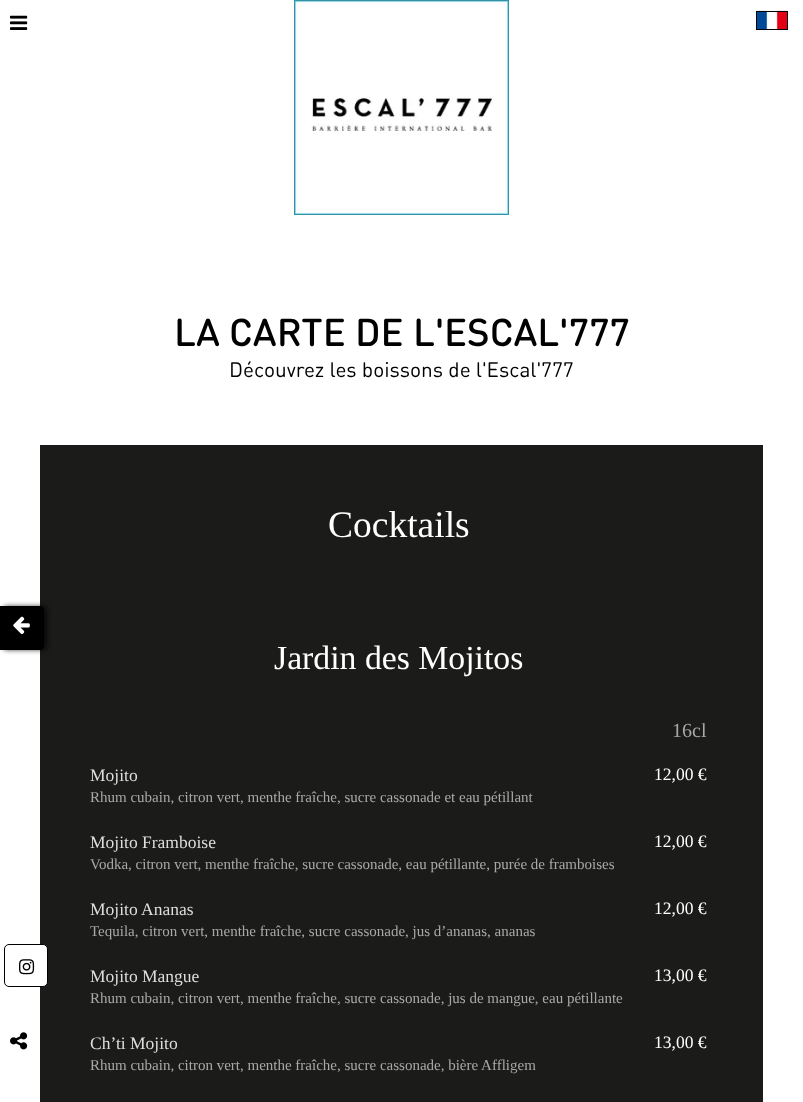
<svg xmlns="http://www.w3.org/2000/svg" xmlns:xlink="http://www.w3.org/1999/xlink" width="803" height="1102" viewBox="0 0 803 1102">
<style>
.cls-1{font:500 38.4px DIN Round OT;fill:#000000}
.cls-2{font:20.75px DIN Round OT;fill:#000000}
.cls-3{font:37.5px Liberation Serif;fill:#ffffff}
.cls-4{font:33.75px Liberation Serif;fill:#ffffff}
.cls-5{font:20px Liberation Serif;fill:#a9a9a9}
.cls-6{font:17.5px Liberation Serif;fill:#dedede}
.cls-7{font:17.5px Liberation Serif;fill:#ffffff}
.cls-8{font:15px Liberation Serif;fill:#a9a9a9}
</style>
<rect width="100%" height="100%" fill="#ffffff"/>
<image xlink:href="image0.png" x="294" y="0" width="215" height="215"/>
<image xlink:href="image1.png" x="10" y="15" width="18" height="15"/>
<image xlink:href="image2.png" x="756" y="10" width="32" height="19"/>
<rect fill="none" stroke="#000000" x="756.5" y="11.5" width="31" height="18"/>
<rect fill="#1b1b1a" x="40" y="445" width="723" height="657"/>
<rect fill="#000000" fill-opacity="0.7" filter="blur(2.5px)" x="3" y="606" width="44" height="44" rx="4"/>
<path fill="#000000" d="M44 610V646C44 648 42 650 40 650H0V606H40C42 606 44 608 44 610Z"/>
<image xlink:href="image3.png" x="13" y="616" width="17" height="18"/>
<image xlink:href="image4.png" x="10" y="1032" width="18" height="18"/>
<rect fill="#ffffff" stroke="#000000" x="4.5" y="944.5" width="43" height="42" rx="4.5"/>
<image xlink:href="image5.png" x="19" y="959" width="16" height="16"/>
<text class="cls-1" x="174" y="346">LA CARTE DE L'ESCAL'777</text>
<text class="cls-2" x="229" y="377">Découvrez les boissons de l'Escal'777</text>
<text class="cls-3" x="328" y="537">Cocktails</text>
<text class="cls-4" x="274" y="669">Jardin des Mojitos</text>
<text class="cls-5" x="672" y="737">16cl</text>
<text class="cls-6" x="90" y="781">Mojito</text>
<text class="cls-7" x="654" y="780">12,00 €</text>
<text class="cls-8" x="90" y="802">Rhum cubain, citron vert, menthe fraîche, sucre cassonade et eau pétillant</text>
<text class="cls-6" x="90" y="848">Mojito Framboise</text>
<text class="cls-7" x="654" y="847">12,00 €</text>
<text class="cls-8" x="90" y="869">Vodka, citron vert, menthe fraîche, sucre cassonade, eau pétillante, purée de framboises</text>
<text class="cls-6" x="90" y="915">Mojito Ananas</text>
<text class="cls-7" x="654" y="914">12,00 €</text>
<text class="cls-8" x="90" y="936">Tequila, citron vert, menthe fraîche, sucre cassonade, jus d’ananas, ananas</text>
<text class="cls-6" x="90" y="982">Mojito Mangue</text>
<text class="cls-7" x="654" y="981">13,00 €</text>
<text class="cls-8" x="90" y="1003">Rhum cubain, citron vert, menthe fraîche, sucre cassonade, jus de mangue, eau pétillante</text>
<text class="cls-6" x="90" y="1049">Ch’ti Mojito</text>
<text class="cls-7" x="654" y="1048">13,00 €</text>
<text class="cls-8" x="90" y="1070">Rhum cubain, citron vert, menthe fraîche, sucre cassonade, bière Affligem</text>
</svg>
